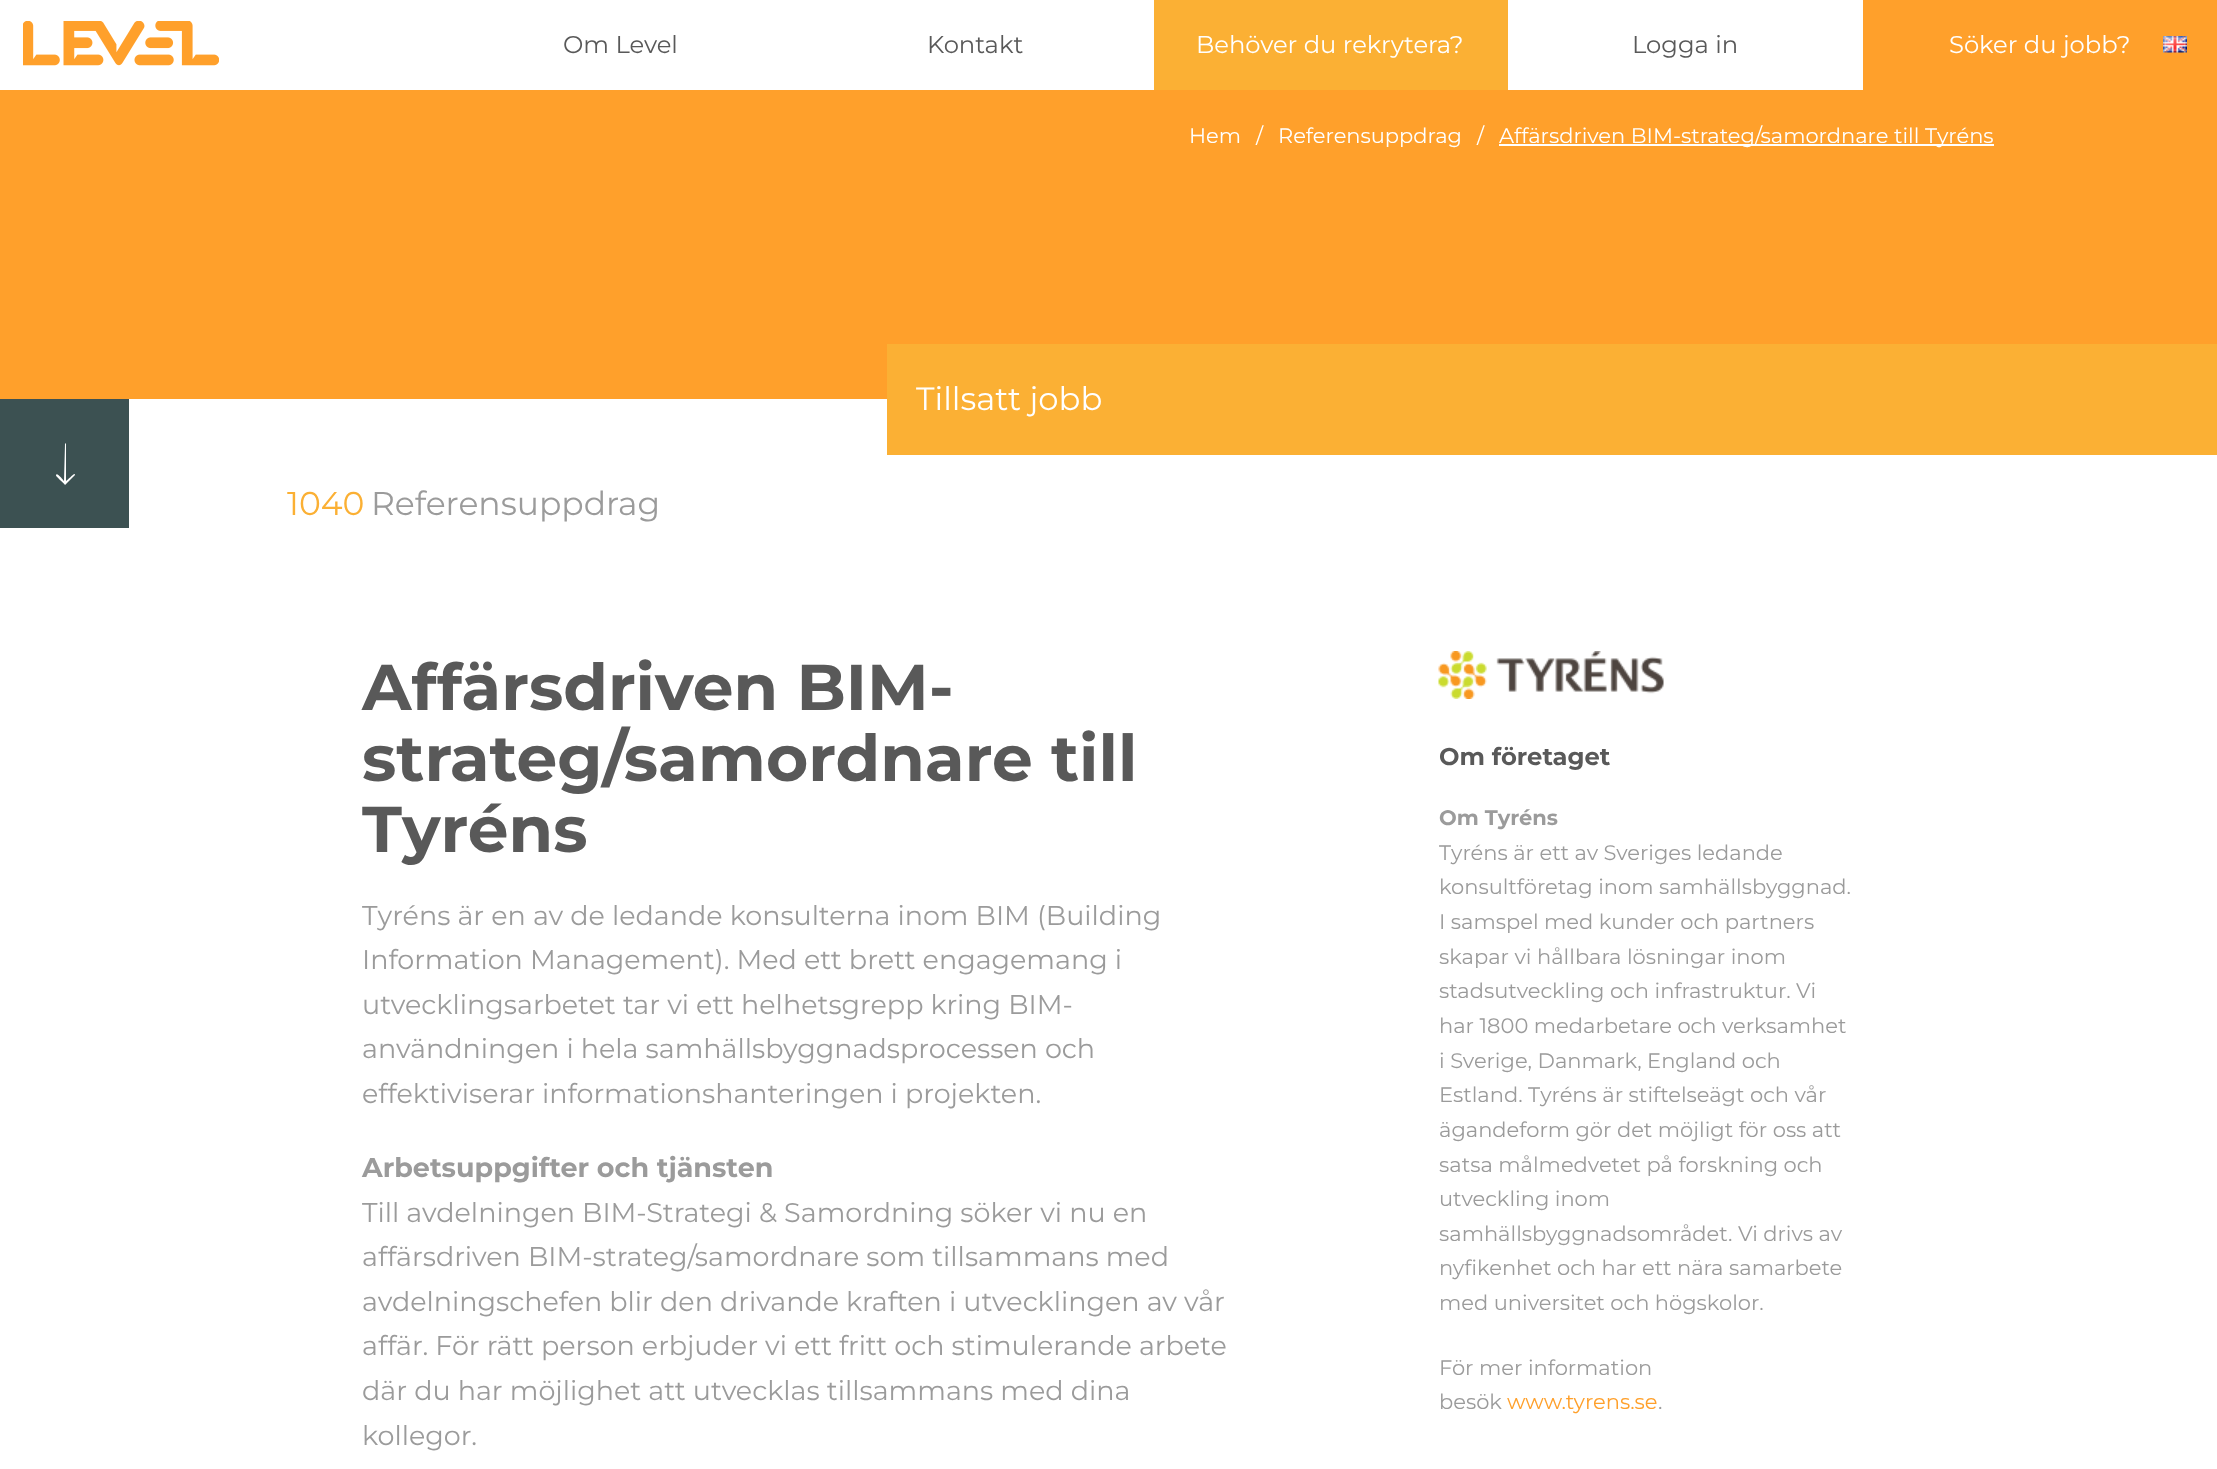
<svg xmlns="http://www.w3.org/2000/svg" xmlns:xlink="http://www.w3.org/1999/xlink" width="2217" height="1469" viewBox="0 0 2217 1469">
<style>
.cls-1{font:24.25px Montserrat;fill:#595959}
.cls-2{font:24.25px Montserrat;fill:#ffffff}
.cls-3{font:21px Montserrat;fill:#ffffff}
.cls-4{font:32.25px Montserrat;fill:#ffffff}
.cls-5{font:33px Montserrat;fill:#fbb034}
.cls-6{font:33px Montserrat;fill:#9b9b9b}
.cls-7{font:bold 64.6px Montserrat;fill:#595959}
.cls-8{font:27px Montserrat;fill:#9b9b9b}
.cls-9{font:bold 27px Montserrat;fill:#9b9b9b}
.cls-10{font:bold 24.25px Montserrat;fill:#595959}
.cls-11{font:bold 21px Montserrat;fill:#9b9b9b}
.cls-12{font:21px Montserrat;fill:#9b9b9b}
.cls-13{font:21px Montserrat;fill:#ffa02b}
</style>
<rect width="100%" height="100%" fill="#ffffff"/>
<image xlink:href="image0.png" x="23" y="21" width="196" height="45"/>
<rect fill="#fbb034" x="1154" y="0" width="354" height="90"/>
<rect fill="#ffa02b" x="1863" y="0" width="354" height="90"/>
<image xlink:href="image1.png" x="2163" y="36" width="24" height="17"/>
<rect fill="#ffa02b" x="0" y="90" width="2217" height="309"/>
<rect fill="#ffffff" x="1499" y="144" width="495" height="2"/>
<rect fill="#3c5152" x="0" y="399" width="129" height="129"/>
<path fill="#ffffff" d="M75 475C75 472 72 476 66 481V444C66 443 65 443 65 444L64 481C63 480 57 472 56 475C55 476 64 483 65 485Z"/>
<rect fill="#fbb034" x="887" y="344" width="1330" height="111"/>
<image xlink:href="image2.png" x="1438" y="651" width="226" height="48"/>
<text class="cls-1" x="563" y="53">Om Level</text>
<text class="cls-1" x="927" y="53">Kontakt</text>
<text class="cls-2" x="1196" y="53">Behöver du rekrytera?</text>
<text class="cls-1" x="1632" y="53">Logga in</text>
<text class="cls-2" x="1949" y="53">Söker du jobb?</text>
<text class="cls-3" x="1189" y="143">Hem</text>
<text class="cls-3" x="1256" y="143">/</text>
<text class="cls-3" x="1278" y="143">Referensuppdrag</text>
<text class="cls-3" x="1477" y="143">/</text>
<text class="cls-3" x="1499" y="143">Affärsdriven BIM-strateg/samordnare till Tyréns</text>
<text class="cls-4" x="916" y="410">Tillsatt jobb</text>
<text class="cls-5" x="287" y="515">1040</text>
<text class="cls-6" x="371" y="515">Referensuppdrag</text>
<text class="cls-7"><tspan x="362" y="710">Affärsdriven BIM-</tspan><tspan x="362" y="781">strateg/samordnare till</tspan><tspan x="362" y="852">Tyréns</tspan></text>
<text class="cls-8"><tspan x="362" y="925">Tyréns är en av de ledande konsulterna inom BIM (Building</tspan><tspan x="362" y="969">Information Management). Med ett brett engagemang i</tspan><tspan x="362" y="1014">utvecklingsarbetet tar vi ett helhetsgrepp kring BIM-</tspan><tspan x="362" y="1058">användningen i hela samhällsbyggnadsprocessen och</tspan><tspan x="362" y="1103">effektiviserar informationshanteringen i projekten.</tspan></text>
<text class="cls-9" x="362" y="1177">Arbetsuppgifter och tjänsten</text>
<text class="cls-8"><tspan x="362" y="1222">Till avdelningen BIM-Strategi &amp; Samordning söker vi nu en</tspan><tspan x="362" y="1266">affärsdriven BIM-strateg/samordnare som tillsammans med</tspan><tspan x="362" y="1311">avdelningschefen blir den drivande kraften i utvecklingen av vår</tspan><tspan x="362" y="1355">affär. För rätt person erbjuder vi ett fritt och stimulerande arbete</tspan><tspan x="362" y="1400">där du har möjlighet att utvecklas tillsammans med dina</tspan><tspan x="362" y="1445">kollegor.</tspan></text>
<text class="cls-10" x="1439" y="765">Om företaget</text>
<text class="cls-11" x="1439" y="825">Om Tyréns</text>
<text class="cls-12"><tspan x="1439" y="860">Tyréns är ett av Sveriges ledande</tspan><tspan x="1439" y="894">konsultföretag inom samhällsbyggnad.</tspan><tspan x="1439" y="929">I samspel med kunder och partners</tspan><tspan x="1439" y="964">skapar vi hållbara lösningar inom</tspan><tspan x="1439" y="998">stadsutveckling och infrastruktur. Vi</tspan><tspan x="1439" y="1033">har 1800 medarbetare och verksamhet</tspan><tspan x="1439" y="1068">i Sverige, Danmark, England och</tspan><tspan x="1439" y="1102">Estland. Tyréns är stiftelseägt och vår</tspan><tspan x="1439" y="1137">ägandeform gör det möjligt för oss att</tspan><tspan x="1439" y="1172">satsa målmedvetet på forskning och</tspan><tspan x="1439" y="1206">utveckling inom</tspan><tspan x="1439" y="1241">samhällsbyggnadsområdet. Vi drivs av</tspan><tspan x="1439" y="1275">nyfikenhet och har ett nära samarbete</tspan><tspan x="1439" y="1310">med universitet och högskolor.</tspan></text>
<text class="cls-12"><tspan x="1439" y="1375">För mer information</tspan><tspan x="1439" y="1409">besök</tspan></text>
<text class="cls-13" x="1507" y="1409">www.tyrens.se</text>
<text class="cls-12" x="1658" y="1409">.</text>
</svg>
